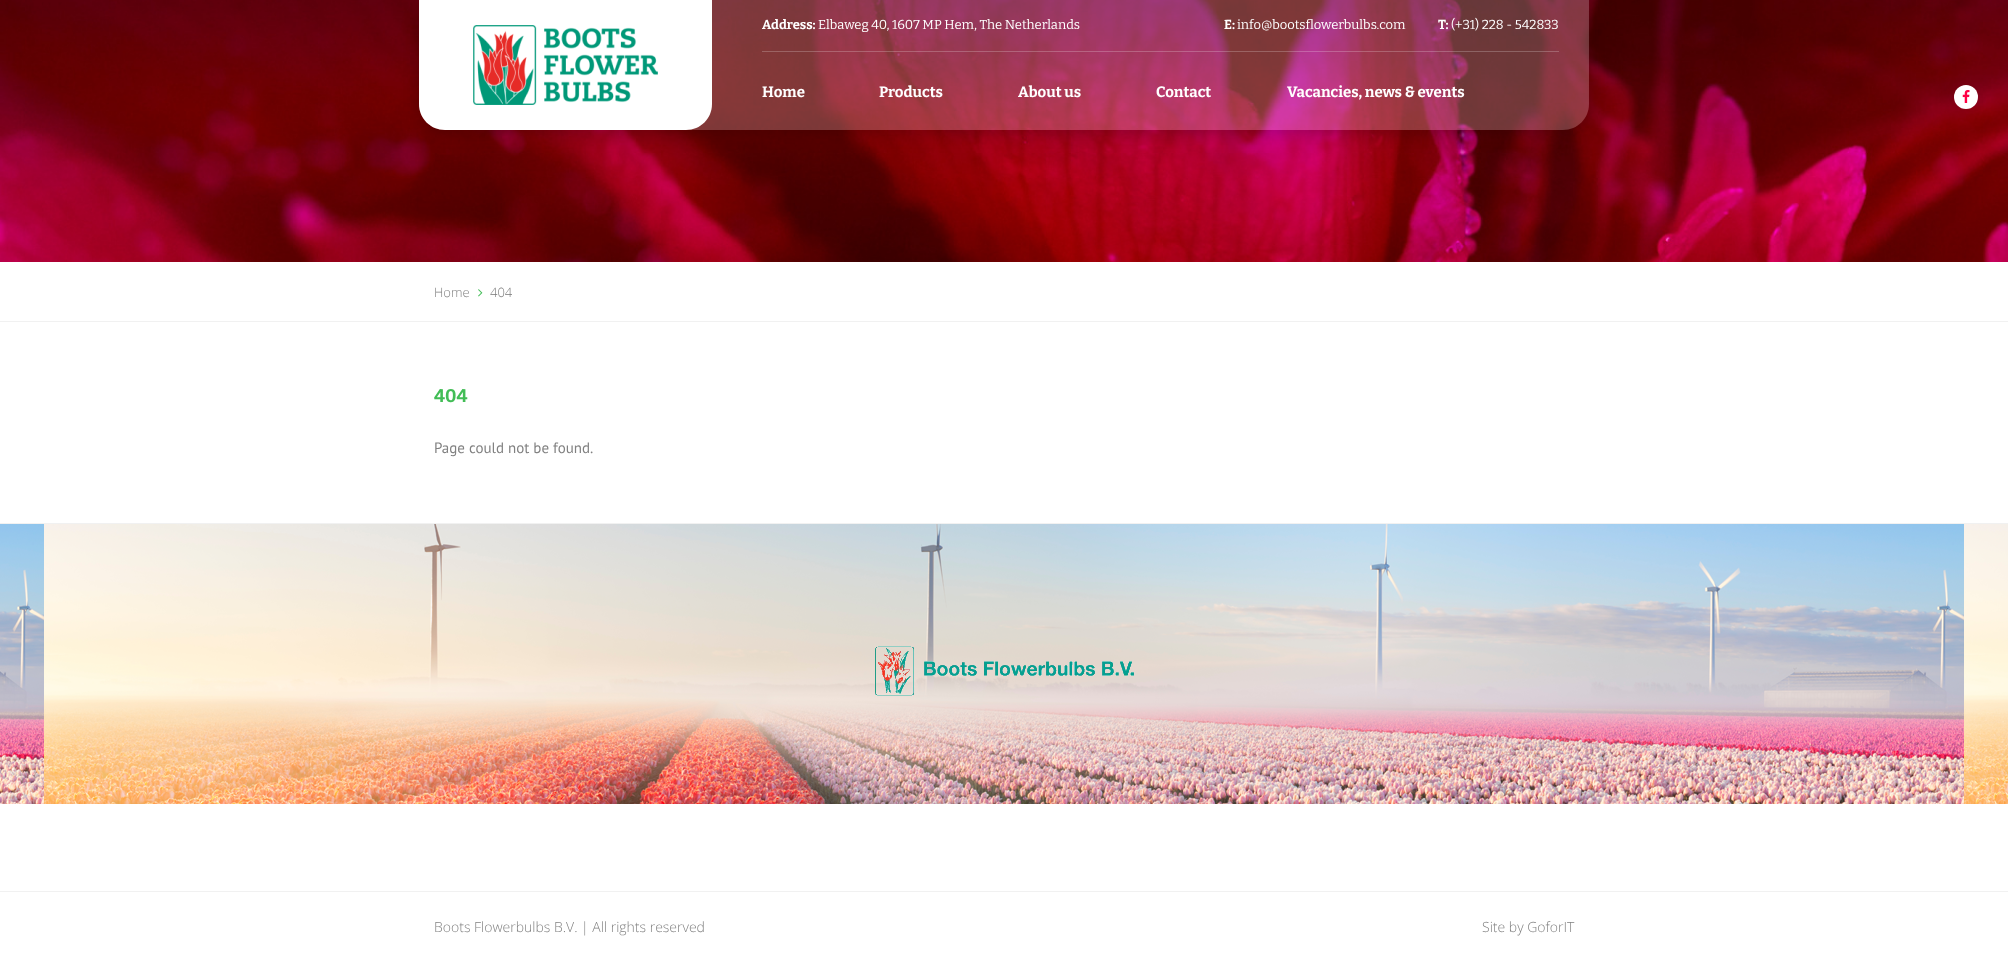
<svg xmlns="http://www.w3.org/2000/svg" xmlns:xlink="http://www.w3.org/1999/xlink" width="2008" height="961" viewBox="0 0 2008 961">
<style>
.cls-1{font:bold 13px Bitter;fill:#ffffff}
.cls-2{font:13px Bitter;fill:#ffffff}
.cls-3{font:bold 15px Bitter;fill:#ffffff}
.cls-4{font:300 13px Open Sans;fill:#818181}
.cls-5{font:300 13px Open Sans;fill:#777777}
.cls-6{font:bold 18px Bitter;fill:#42bd56}
.cls-7{font:15px PT Sans;fill:#818181}
.cls-8{font:300 14px Open Sans;fill:#818181}
</style>
<defs>
<clipPath id="clip1"><path d="M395 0H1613V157H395ZM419 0H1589V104C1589 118.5 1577.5 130 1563 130H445C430.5 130 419 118.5 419 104Z" clip-rule="evenodd"/></clipPath>
</defs>
<rect width="100%" height="100%" fill="#ffffff"/>
<image xlink:href="image2.png" x="0" y="0" width="2008" height="262"/>
<g clip-path="url(#clip1)">
<rect fill="#000000" fill-opacity="0.2" filter="blur(7.5px)" x="419" y="3" width="1170" height="130" rx="26"/>
</g>
<path fill="#ffffff" fill-opacity="0.22" d="M419 0H1589V104C1589 118.5 1577.5 130 1563 130H445C430.5 130 419 118.5 419 104Z"/>
<path fill="#ffffff" d="M419 0H712V104C712 118.5 700.5 130 686 130H445C430.5 130 419 118.5 419 104Z"/>
<image xlink:href="image0.png" x="473" y="25" width="185" height="80"/>
<rect fill="#ffffff" fill-opacity="0.22" x="762" y="51" width="797" height="1"/>
<circle fill="#ffffff" cx="1966" cy="97" r="12"/>
<image xlink:href="image1.png" x="1962" y="90" width="8" height="13"/>
<rect fill="#f1f1f1" x="0" y="321" width="2008" height="1"/>
<image xlink:href="image3.png" x="478" y="289" width="5" height="8"/>
<rect fill="#f1f1f1" x="0" y="523" width="2008" height="1"/>
<image xlink:href="image4.png" x="0" y="524" width="2008" height="280"/>
<rect fill="#f1f1f1" x="0" y="891" width="2008" height="1"/>
<text class="cls-1" x="762" y="29">Address:</text>
<text class="cls-2" x="818" y="29">Elbaweg 40, 1607 MP Hem, The Netherlands</text>
<text class="cls-1" x="1224" y="29">E:</text>
<text class="cls-2" x="1237" y="29">info@bootsflowerbulbs.com</text>
<text class="cls-1" x="1438" y="29">T:</text>
<text class="cls-2" x="1451" y="29">(+31) 228 - 542833</text>
<text class="cls-3" x="762" y="97">Home</text>
<text class="cls-3" x="879" y="97">Products</text>
<text class="cls-3" x="1018" y="97">About us</text>
<text class="cls-3" x="1156" y="97">Contact</text>
<text class="cls-3" x="1287" y="97">Vacancies, news &amp; events</text>
<text class="cls-4" x="434" y="297">Home</text>
<text class="cls-5" x="490" y="297">404</text>
<text class="cls-6" x="434" y="402">404</text>
<text class="cls-7" x="434" y="453">Page could not be found.</text>
<text class="cls-8" x="434" y="932">Boots Flowerbulbs B.V. | All rights reserved</text>
<text class="cls-8" x="1482" y="932">Site by GoforIT</text>
</svg>
